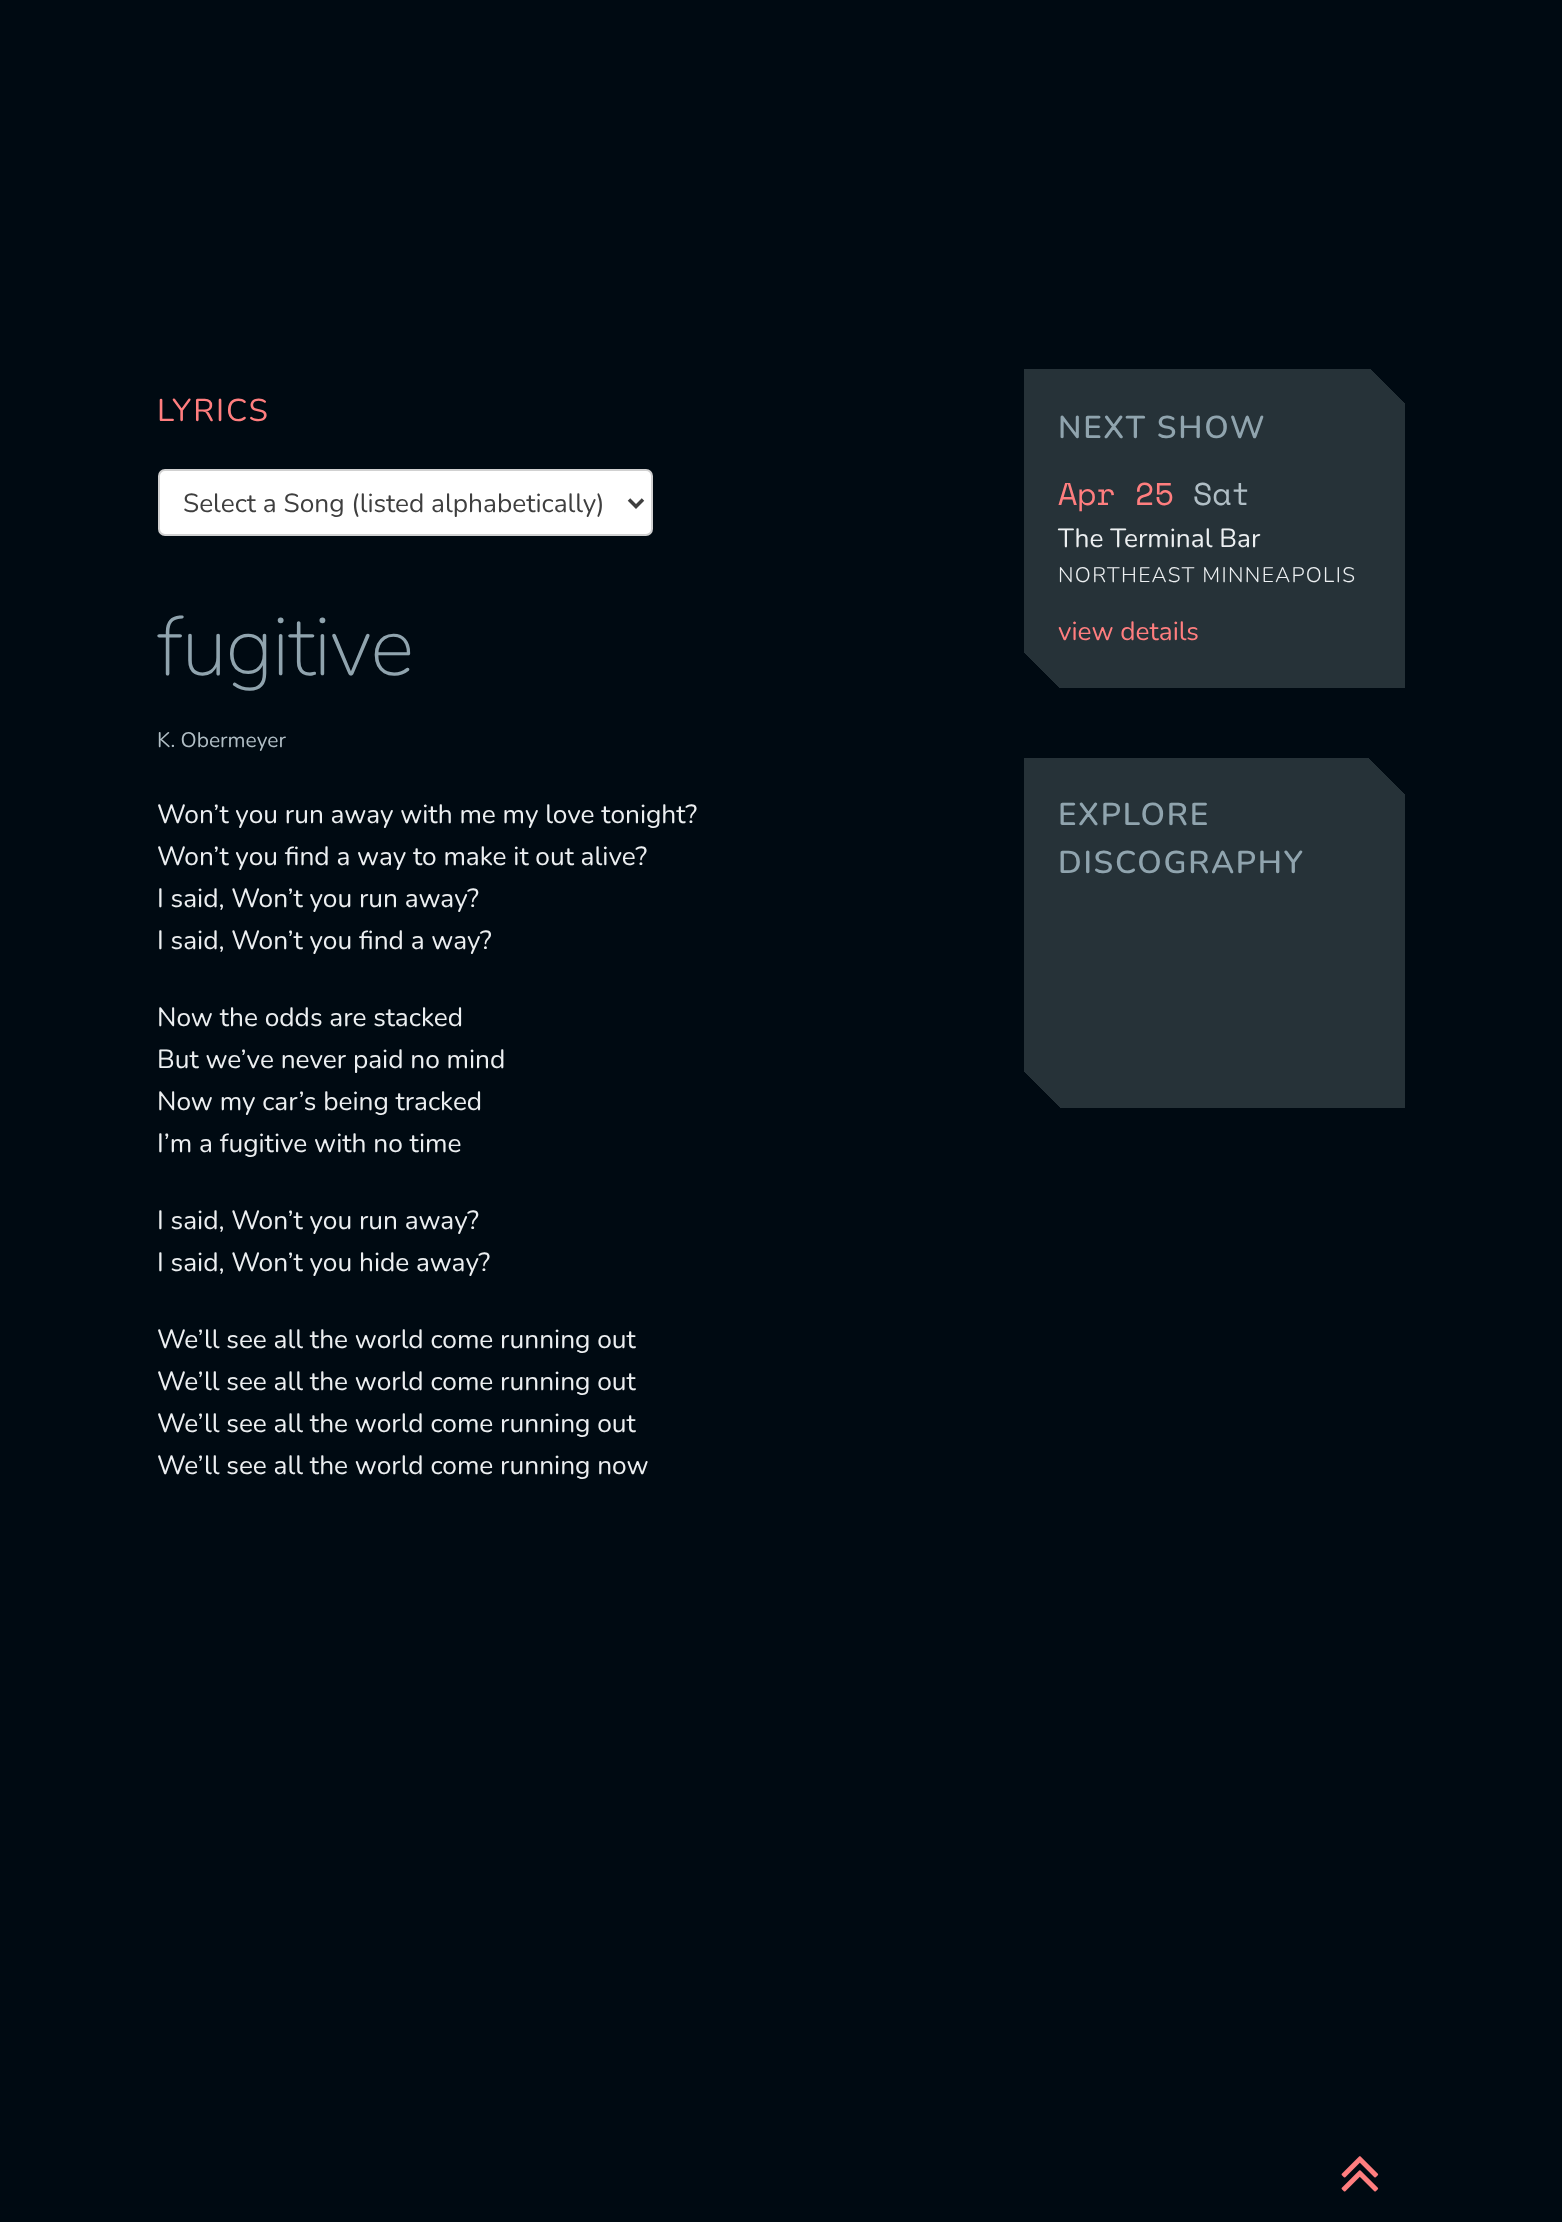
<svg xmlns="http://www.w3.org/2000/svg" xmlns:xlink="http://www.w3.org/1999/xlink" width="1562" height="2222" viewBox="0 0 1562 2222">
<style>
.cls-1{font:31.5px Nunito;letter-spacing:1.75px;fill:#ff7e7f}
.cls-2{font:26.25px Nunito;fill:#3f3f3f}
.cls-3{font:200 84px Nunito;letter-spacing:-1.5px;fill:#90a4ae}
.cls-4{font:21px Nunito;fill:#b0bec5}
.cls-5{font:26.25px Nunito;fill:#eceff1}
.cls-6{font:600 31.5px Nunito;letter-spacing:1.75px;fill:#90a4ae}
.cls-7{font:31.5px Space Mono;fill:#ff7e7f}
.cls-8{font:31.5px Space Mono;fill:#b0bec5}
.cls-9{font:300 21px Nunito;letter-spacing:1.4px;fill:#eceff1}
.cls-10{font:26.25px Nunito;fill:#ff7e7f}
</style>
<defs>
<linearGradient id="g1" gradientUnits="userSpaceOnUse" x1="1040" y1="704" x2="1390" y2="354"><stop offset="0" stop-color="#000a12"/><stop offset="0.05" stop-color="#000a12"/><stop offset="0.05" stop-color="#263238"/><stop offset="0.95" stop-color="#263238"/><stop offset="0.95" stop-color="#000a12"/></linearGradient>
<linearGradient id="g2" gradientUnits="userSpaceOnUse" x1="1032" y1="1116" x2="1397" y2="750"><stop offset="0" stop-color="#000a12"/><stop offset="0.05" stop-color="#000a12"/><stop offset="0.05" stop-color="#263238"/><stop offset="0.95" stop-color="#263238"/><stop offset="0.95" stop-color="#000a12"/></linearGradient>
</defs>
<rect width="100%" height="100%" fill="#000a12"/>
<rect fill="#ffffff" stroke="#d1d1d1" stroke-width="2" x="159" y="470" width="493" height="65" rx="6"/>
<path fill="none" stroke="#3f3f3f" stroke-width="3.5" d="M629 499.5L636 506.5L643 499.5"/>
<rect fill="url(#g1)" x="1024" y="369" width="381" height="319"/>
<rect fill="url(#g2)" x="1024" y="758" width="381" height="350"/>
<image xlink:href="image0.png" x="1341" y="2156" width="38" height="36"/>
<text class="cls-1" x="157" y="421">LYRICS</text>
<text class="cls-2" x="183" y="512">Select a Song (listed alphabetically)</text>
<text class="cls-3" x="157" y="675">fugitive</text>
<text class="cls-4" x="157" y="747">K. Obermeyer</text>
<text class="cls-5"><tspan x="157" y="823">Won’t you run away with me my love tonight?</tspan><tspan x="157" y="865">Won’t you find a way to make it out alive?</tspan><tspan x="157" y="907">I said, Won’t you run away?</tspan><tspan x="157" y="949">I said, Won’t you find a way?</tspan></text>
<text class="cls-5"><tspan x="157" y="1026">Now the odds are stacked</tspan><tspan x="157" y="1068">But we’ve never paid no mind</tspan><tspan x="157" y="1110">Now my car’s being tracked</tspan><tspan x="157" y="1152">I’m a fugitive with no time</tspan></text>
<text class="cls-5"><tspan x="157" y="1229">I said, Won’t you run away?</tspan><tspan x="157" y="1271">I said, Won’t you hide away?</tspan></text>
<text class="cls-5"><tspan x="157" y="1348">We’ll see all the world come running out</tspan><tspan x="157" y="1390">We’ll see all the world come running out</tspan><tspan x="157" y="1432">We’ll see all the world come running out</tspan><tspan x="157" y="1474">We’ll see all the world come running now</tspan></text>
<text class="cls-6" x="1058" y="438">NEXT SHOW</text>
<text class="cls-7" x="1058" y="505">Apr 25</text>
<text class="cls-8" x="1193" y="505">Sat</text>
<text class="cls-5" x="1058" y="547">The Terminal Bar</text>
<text class="cls-9" x="1058" y="582">NORTHEAST MINNEAPOLIS</text>
<text class="cls-10" x="1058" y="640">view details</text>
<text class="cls-6"><tspan x="1058" y="825">EXPLORE</tspan><tspan x="1058" y="873">DISCOGRAPHY</tspan></text>
</svg>
